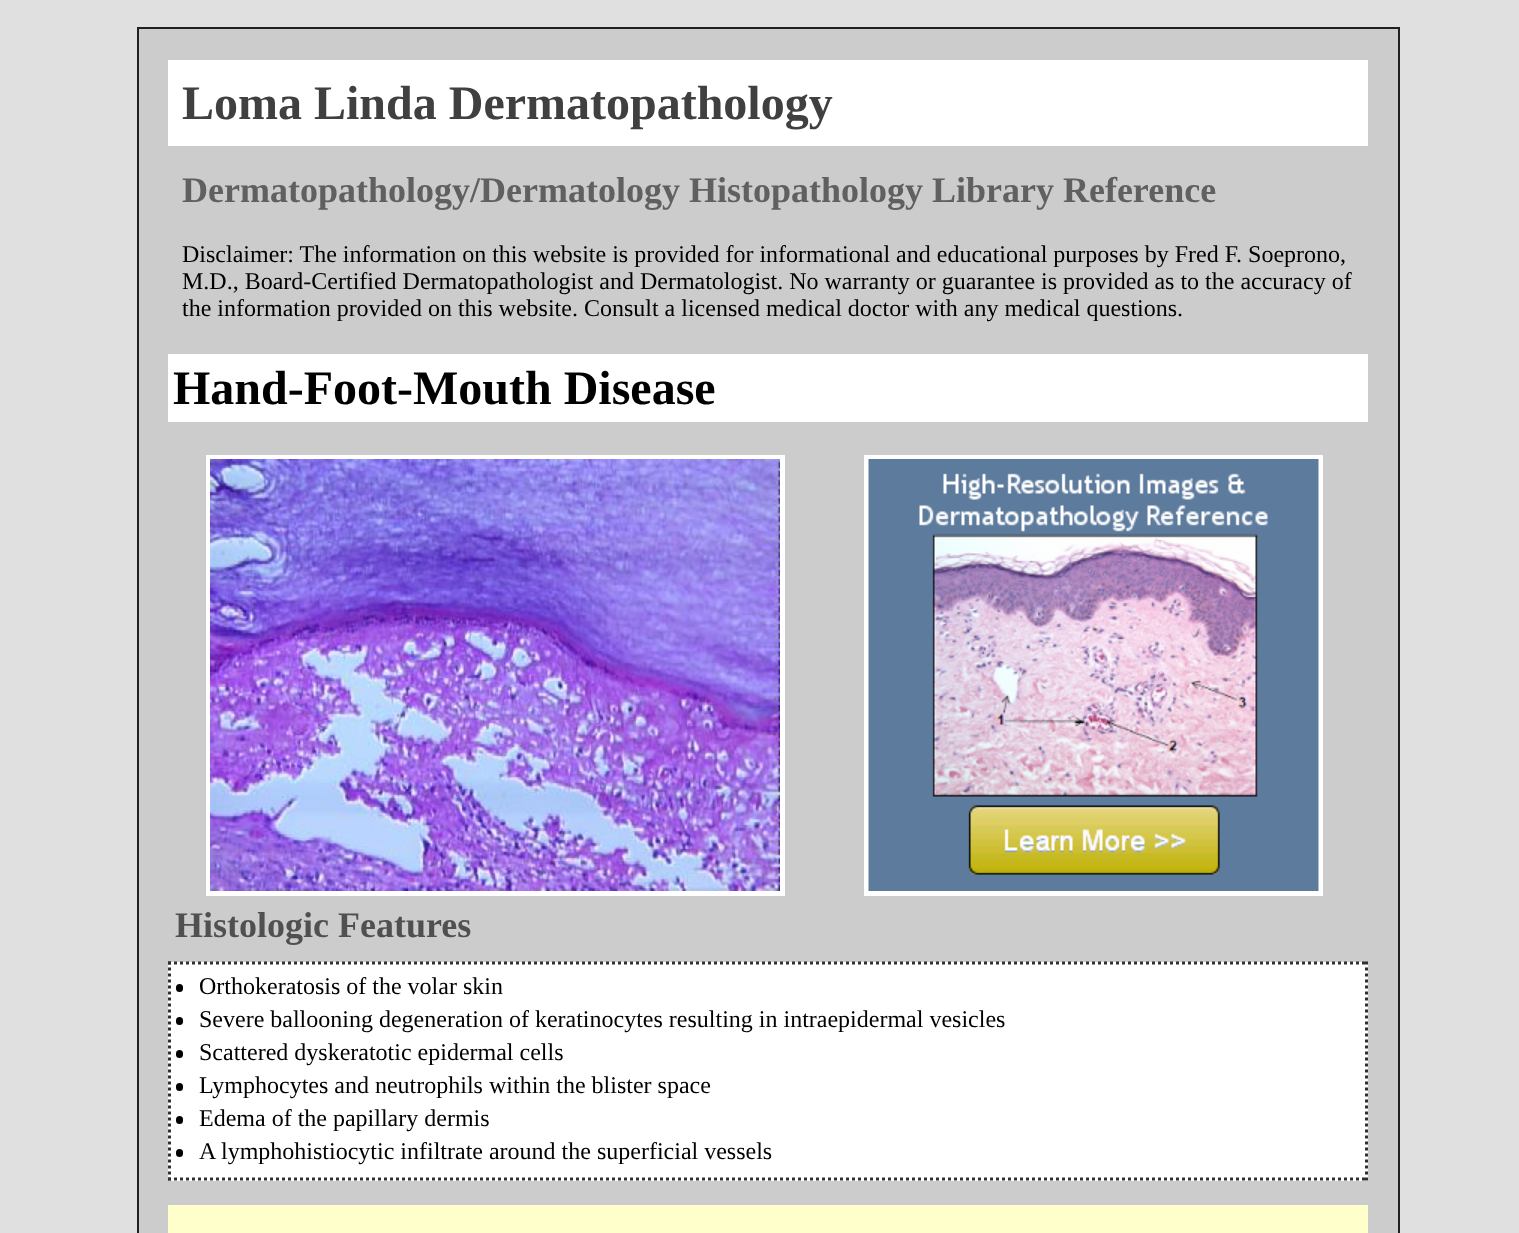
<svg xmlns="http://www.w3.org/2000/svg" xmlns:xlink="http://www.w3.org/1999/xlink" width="1519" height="1233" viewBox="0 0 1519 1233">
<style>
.cls-1{font:bold 48px Liberation Serif;fill:#404040}
.cls-2{font:bold 36px Liberation Serif;fill:#606060}
.cls-3{font:24px Liberation Serif;fill:#000000}
.cls-4{font:bold 48px Liberation Serif;fill:#000000}
.cls-5{font:bold 36px Liberation Serif;fill:#505050}
</style>
<rect width="100%" height="100%" fill="#e0e0e0"/>
<rect fill="#cccccc" stroke="#202020" stroke-width="2" x="138" y="28" width="1261" height="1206"/>
<rect fill="#ffffff" x="168" y="60" width="1200" height="86"/>
<rect fill="#ffffff" x="168" y="354" width="1200" height="68"/>
<rect fill="none" stroke="#ffffff" stroke-width="5" x="208.5" y="457.5" width="574" height="436"/>
<rect fill="none" stroke="#ffffff" stroke-width="5" x="866.5" y="457.5" width="454" height="436"/>
<image xlink:href="image0.png" x="868" y="459" width="451" height="432"/>
<image xlink:href="image1.png" x="210" y="459" width="570" height="432"/>
<rect fill="#ffffff" x="168" y="962" width="1200" height="219"/>
<path fill="none" stroke="#303030" stroke-width="3" stroke-dasharray="3 3" d="M168 963H1368"/>
<path fill="none" stroke="#303030" stroke-width="3" stroke-dasharray="3 3" d="M1366.5 961.5V1180.5"/>
<path fill="none" stroke="#303030" stroke-width="3" stroke-dasharray="3 3" d="M168 1179H1368"/>
<path fill="none" stroke="#303030" stroke-width="3" stroke-dasharray="3 3" d="M169.5 961.5V1180.5"/>
<rect fill="#000000" x="176" y="984" width="7" height="8" rx="3.5"/>
<rect fill="#000000" x="176" y="1017" width="7" height="8" rx="3.5"/>
<rect fill="#000000" x="176" y="1050" width="7" height="8" rx="3.5"/>
<rect fill="#000000" x="176" y="1083" width="7" height="8" rx="3.5"/>
<rect fill="#000000" x="176" y="1116" width="7" height="8" rx="3.5"/>
<rect fill="#000000" x="176" y="1149" width="7" height="8" rx="3.5"/>
<rect fill="#ffffcc" x="168" y="1205" width="1200" height="28"/>
<text class="cls-1" x="182" y="119">Loma Linda Dermatopathology</text>
<text class="cls-2" x="182" y="202">Dermatopathology/Dermatology Histopathology Library Reference</text>
<text class="cls-3"><tspan x="182" y="262">Disclaimer: The information on this website is provided for informational and educational purposes by Fred F. Soeprono,</tspan><tspan x="182" y="289">M.D., Board-Certified Dermatopathologist and Dermatologist. No warranty or guarantee is provided as to the accuracy of</tspan><tspan x="182" y="316">the information provided on this website. Consult a licensed medical doctor with any medical questions.</tspan></text>
<text class="cls-4" x="173" y="404">Hand-Foot-Mouth Disease</text>
<text class="cls-5" x="175" y="937">Histologic Features</text>
<text class="cls-3"><tspan x="199" y="994">Orthokeratosis of the volar skin</tspan><tspan x="199" y="1027">Severe ballooning degeneration of keratinocytes resulting in intraepidermal vesicles</tspan><tspan x="199" y="1060">Scattered dyskeratotic epidermal cells</tspan><tspan x="199" y="1093">Lymphocytes and neutrophils within the blister space</tspan><tspan x="199" y="1126">Edema of the papillary dermis</tspan><tspan x="199" y="1159">A lymphohistiocytic infiltrate around the superficial vessels</tspan></text>
</svg>
